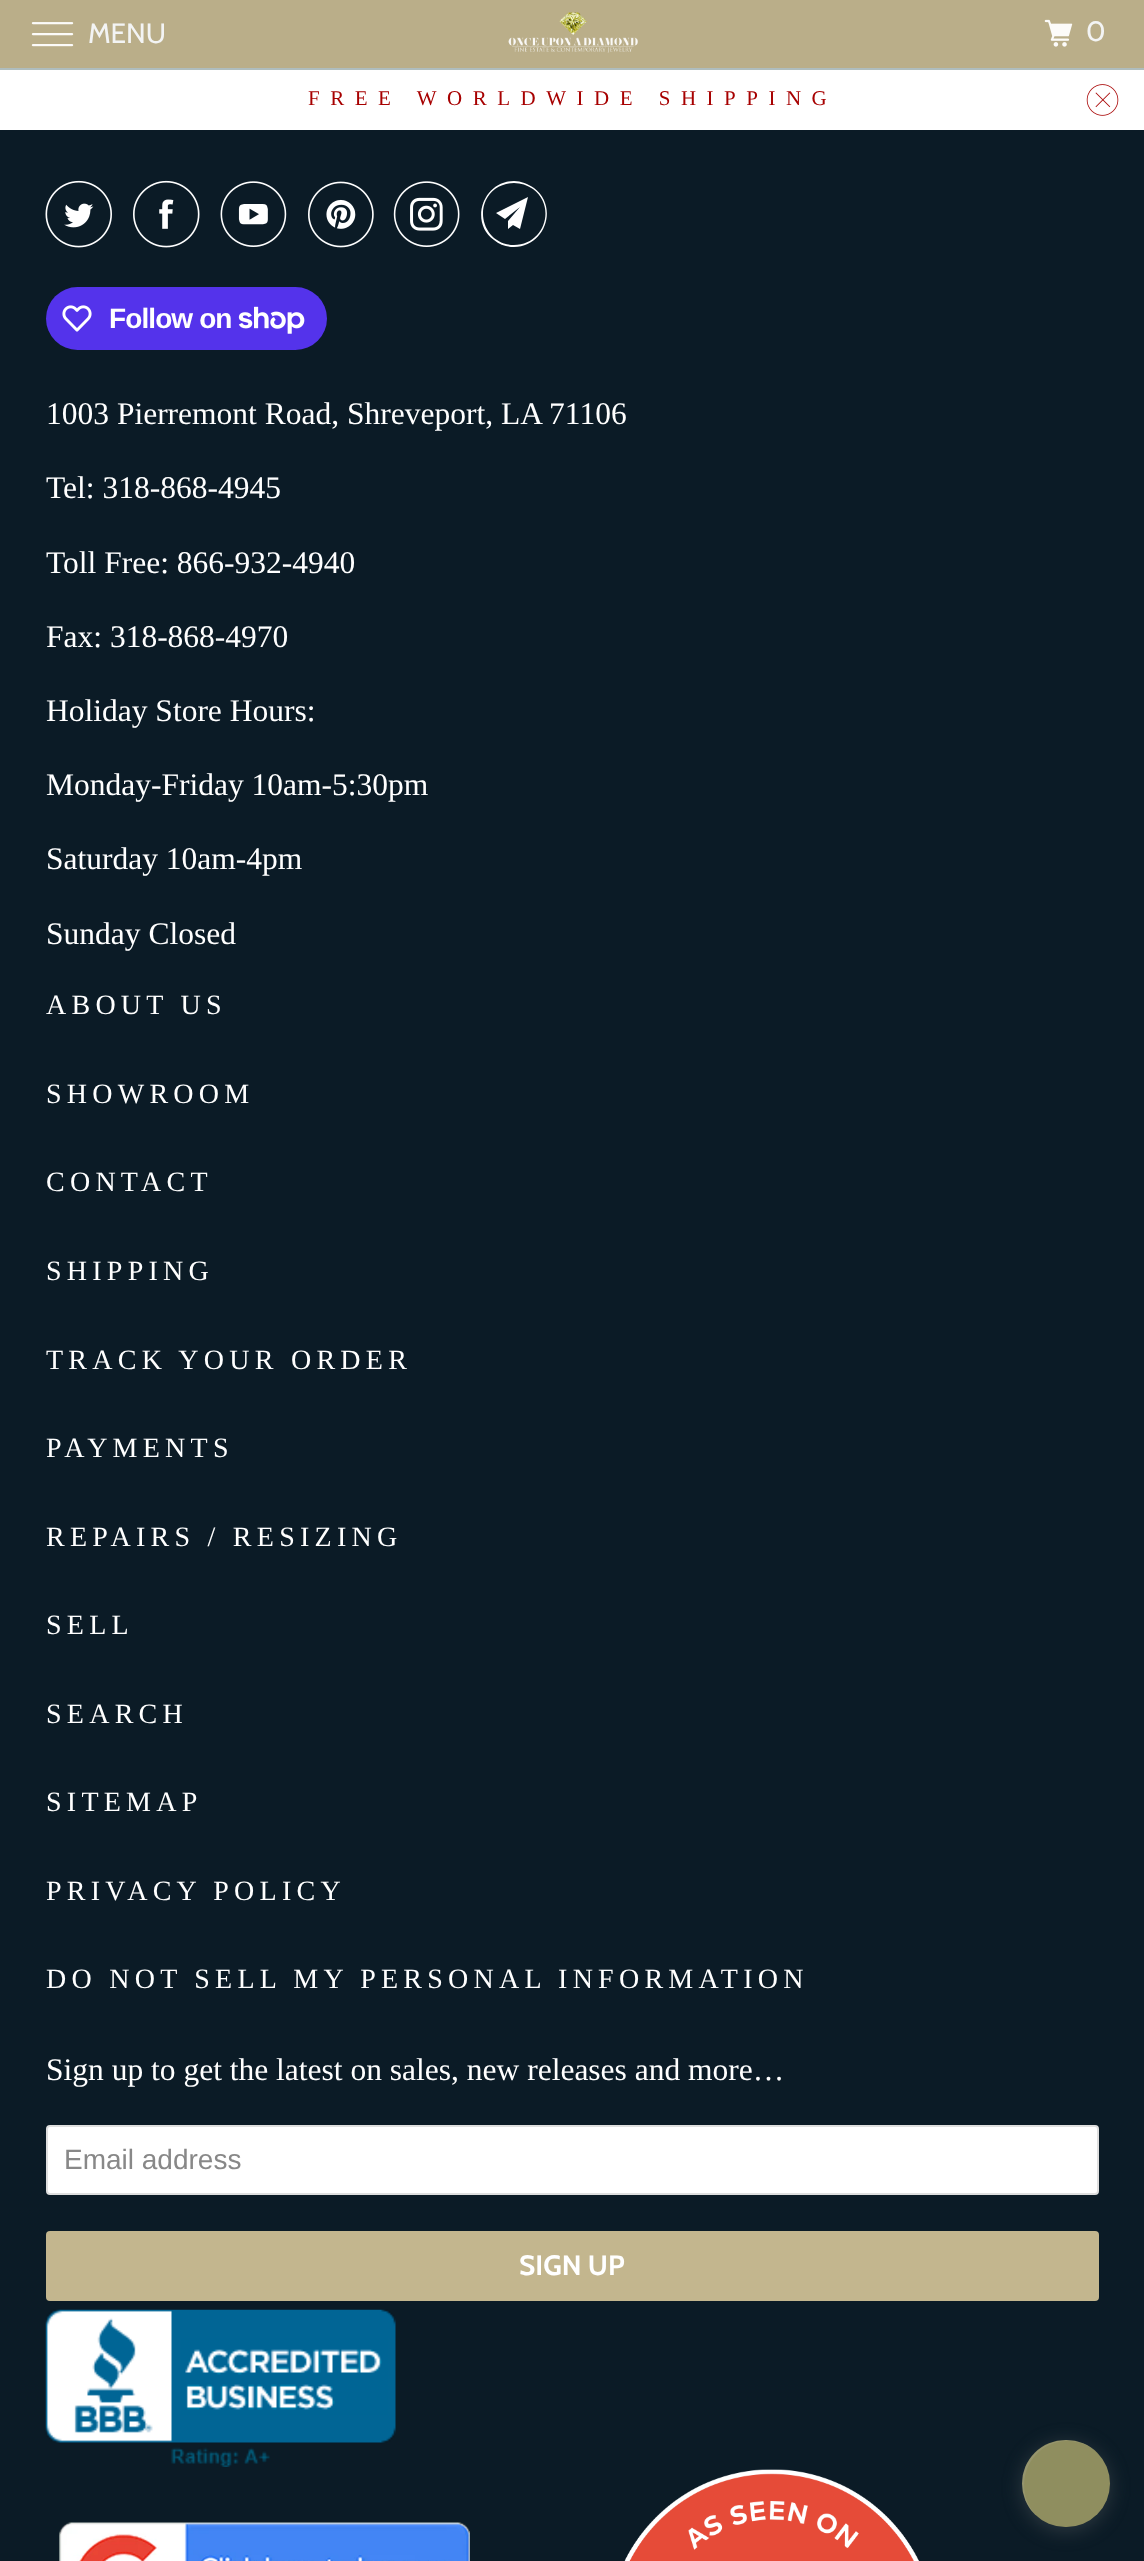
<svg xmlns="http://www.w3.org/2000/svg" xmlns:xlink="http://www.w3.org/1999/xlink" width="1144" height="2561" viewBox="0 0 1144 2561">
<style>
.cls-1{font:28px Cabin;fill:#f3f4f4}
.cls-2{font:21px Liberation Serif;letter-spacing:10.5px;fill:#a70000}
.cls-3{font:bold 28px Liberation Sans;letter-spacing:-0.9px;fill:#ffffff}
.cls-4{font:31.5px Liberation Serif;fill:#ffffff}
.cls-5{font:28px Liberation Serif;letter-spacing:5.25px;fill:#ffffff}
.cls-6{font:28px Liberation Sans;fill:#888888}
.cls-7{font:bold 28px Cabin;fill:#ffffff}
</style>
<rect width="100%" height="100%" fill="#0b1b26"/>
<rect fill="#baae89" x="0" y="0" width="1144" height="68"/>
<rect fill="#afbdbe" x="0" y="68" width="1144" height="2"/>
<image xlink:href="image0.png" x="31" y="22" width="43" height="25"/>
<image xlink:href="image1.png" x="508" y="12" width="130" height="41"/>
<image xlink:href="image2.png" x="1044" y="19" width="29" height="28"/>
<rect fill="#ffffff" x="0" y="70" width="1144" height="60"/>
<image xlink:href="image3.png" x="1086" y="84" width="33" height="32"/>
<image xlink:href="image4.png" x="45" y="180" width="67" height="68"/>
<image xlink:href="image5.png" x="133" y="180" width="67" height="68"/>
<image xlink:href="image6.png" x="220" y="181" width="67" height="66"/>
<image xlink:href="image7.png" x="308" y="181" width="66" height="67"/>
<image xlink:href="image8.png" x="393" y="181" width="67" height="66"/>
<path fill="#ffffff" d="M520 229L513 225L508 229V221L520 207L505 219L496 213L528 197ZM514 183C507 183 501 185 495 189C472 207 484 245 514 245C544 245 557 207 533 189C527 185 521 183 514 183ZM514 247C507 247 500 245 494 240C469 222 483 181 514 181C521 181 528 184 534 188C559 207 545 247 514 247Z"/>
<rect fill="#5433eb" x="46" y="287" width="281" height="63" rx="31.5"/>
<image xlink:href="image9.png" x="62" y="305" width="30" height="27"/>
<image xlink:href="image10.png" x="238" y="306" width="67" height="28"/>
<rect fill="#ffffff" stroke="#dfdfdf" stroke-width="2" x="47" y="2126" width="1051" height="68" rx="3"/>
<rect fill="#c3b68e" x="46" y="2231" width="1053" height="70" rx="4"/>
<image xlink:href="image11.png" x="45" y="2309" width="351" height="158"/>
<image xlink:href="image12.png" x="59" y="2522" width="411" height="39"/>
<image xlink:href="image13.png" x="624" y="2469" width="295" height="92"/>
<rect fill="#626669" fill-opacity="0.4" filter="blur(9.5px)" x="1022" y="2443" width="88" height="88" rx="44"/>
<rect fill="#8f8e5f" x="1022" y="2440" width="88" height="87" rx="43.5"/>
<path fill="#c0c4c7" fill-opacity="0.15" d="M1068 2441C1080 2441 1090 2446 1098 2453C1081 2436 1052 2436 1035 2453C1017 2470 1018 2500 1037 2516C1010 2489 1028 2441 1068 2441Z"/>
<text class="cls-1" x="88" y="43">MENU</text>
<text class="cls-1" x="1086" y="41">0</text>
<text class="cls-2" x="308" y="105">FREE WORLDWIDE SHIPPING</text>
<text class="cls-3" x="109" y="328">Follow on</text>
<text class="cls-4" x="46" y="424">1003 Pierremont Road, Shreveport, LA 71106</text>
<text class="cls-4" x="46" y="498">Tel: 318-868-4945</text>
<text class="cls-4" x="46" y="573">Toll Free: 866-932-4940</text>
<text class="cls-4" x="46" y="647">Fax: 318-868-4970</text>
<text class="cls-4" x="46" y="721">Holiday Store Hours:</text>
<text class="cls-4" x="46" y="795">Monday-Friday 10am-5:30pm</text>
<text class="cls-4" x="46" y="869">Saturday 10am-4pm</text>
<text class="cls-4" x="46" y="944">Sunday Closed</text>
<text class="cls-5" x="46" y="1014">ABOUT US</text>
<text class="cls-5" x="46" y="1103">SHOWROOM</text>
<text class="cls-5" x="46" y="1191">CONTACT</text>
<text class="cls-5" x="46" y="1280">SHIPPING</text>
<text class="cls-5" x="46" y="1369">TRACK YOUR ORDER</text>
<text class="cls-5" x="46" y="1457">PAYMENTS</text>
<text class="cls-5" x="46" y="1546">REPAIRS / RESIZING</text>
<text class="cls-5" x="46" y="1634">SELL</text>
<text class="cls-5" x="46" y="1723">SEARCH</text>
<text class="cls-5" x="46" y="1811">SITEMAP</text>
<text class="cls-5" x="46" y="1900">PRIVACY POLICY</text>
<text class="cls-5" x="46" y="1988">DO NOT SELL MY PERSONAL INFORMATION</text>
<text class="cls-4" x="46" y="2080">Sign up to get the latest on sales, new releases and more…</text>
<text class="cls-6" x="64" y="2169">Email address</text>
<text class="cls-7" x="519" y="2275">SIGN UP</text>
</svg>
